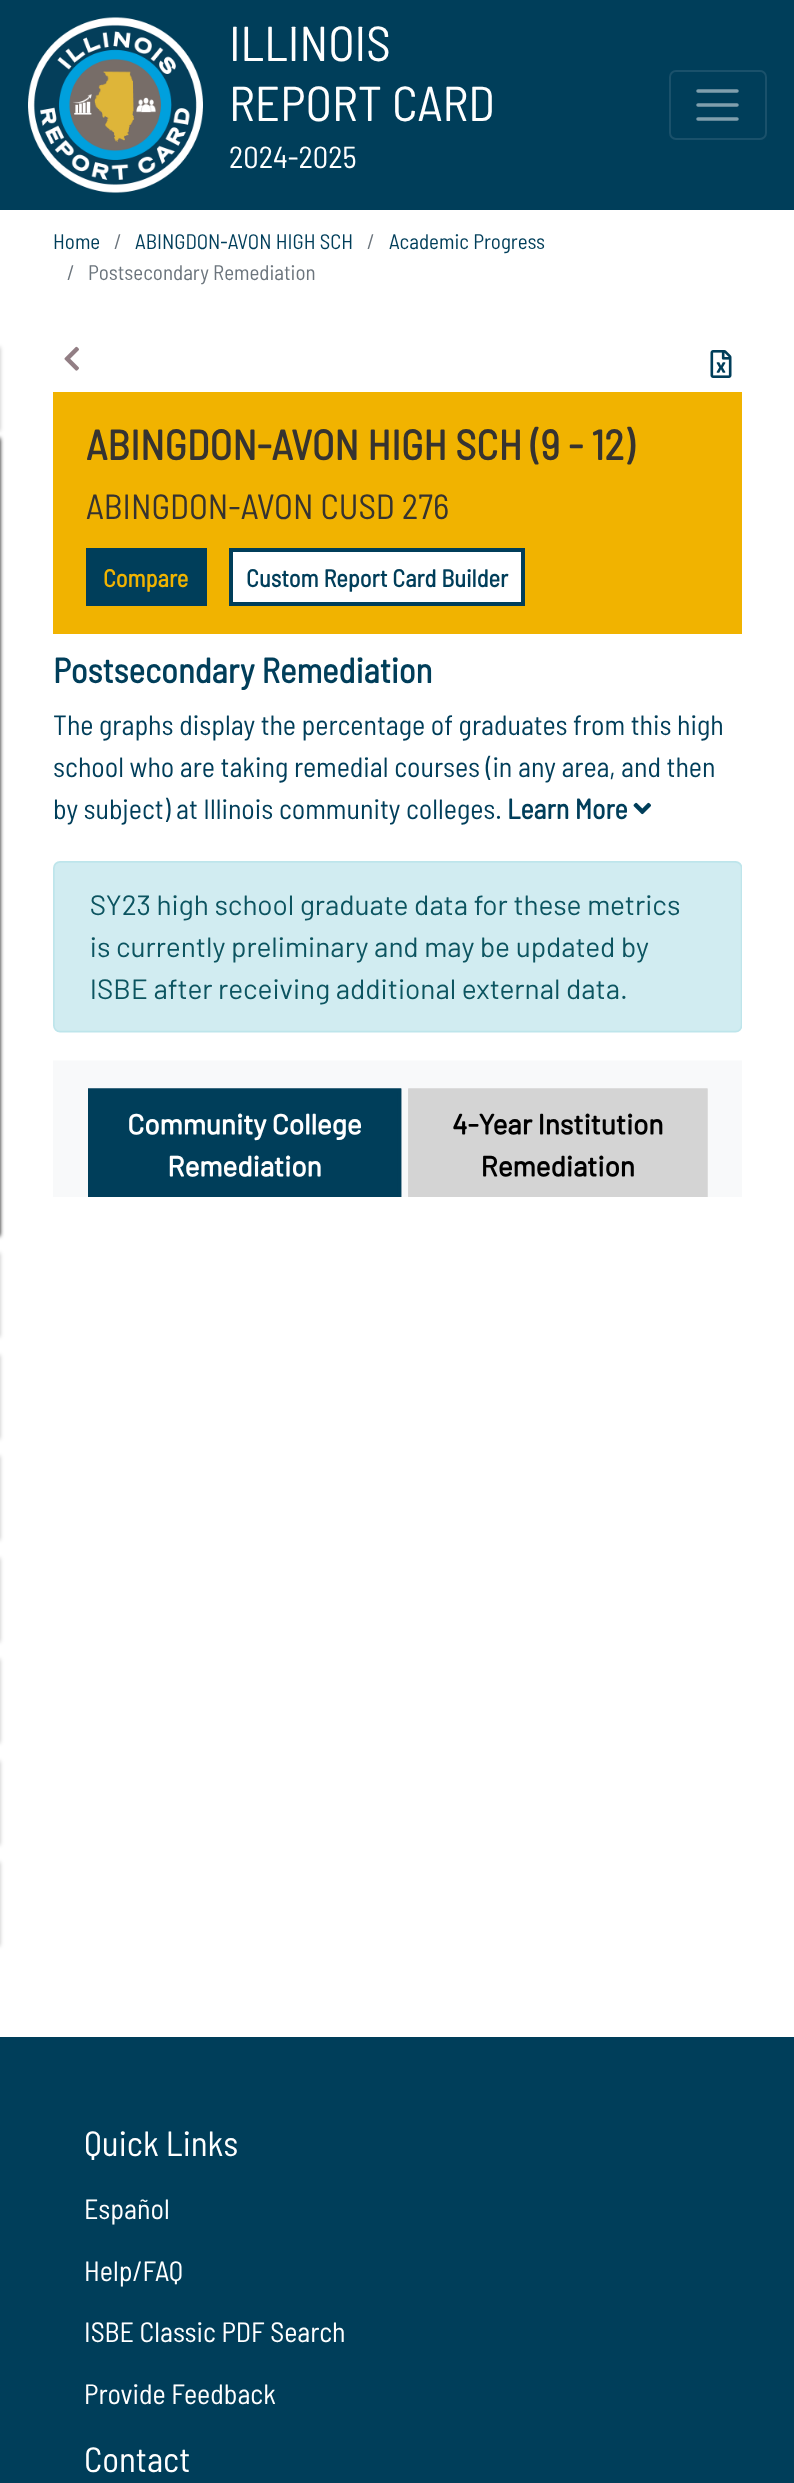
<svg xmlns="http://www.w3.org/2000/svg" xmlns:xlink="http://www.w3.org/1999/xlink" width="794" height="2483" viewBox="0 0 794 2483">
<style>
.cls-1{font:49px Barlow Semi Condensed;fill:#ffffff}
.cls-2{font:30.5px Barlow Semi Condensed;fill:#ffffff}
.cls-3{font:21px Barlow Semi Condensed;fill:#003e5a}
.cls-4{font:21px Barlow Semi Condensed;fill:#6c757d}
.cls-5{font:bold 42px Barlow Semi Condensed;fill:#363330}
.cls-6{font:35px Barlow Semi Condensed;fill:#363330}
.cls-7{font:bold 24.5px Barlow Semi Condensed;fill:#f1b300}
.cls-8{font:bold 24.5px Barlow Semi Condensed;fill:#003e5a}
.cls-9{font:bold 35px Barlow Semi Condensed;fill:#003e5a}
.cls-10{font:28px Barlow Semi Condensed;fill:#003e5a}
.cls-11{font:bold 28px Barlow Semi Condensed;fill:#003e5a}
.cls-12{font:35px Barlow Semi Condensed;fill:#ffffff}
.cls-13{font:28px Barlow Semi Condensed;fill:#ffffff}
</style>
<rect width="100%" height="100%" fill="#ffffff"/>
<rect fill="#003e5a" x="0" y="0" width="794" height="210"/>
<image xlink:href="image0.png" x="28" y="17" width="175" height="176"/>
<rect fill="none" stroke="#1a516b" stroke-width="2" x="670" y="71" width="96" height="68" rx="6"/>
<path fill="none" stroke="#809fad" stroke-width="3.5" stroke-linecap="round" d="M698 91H737M698 105H737M698 119H737"/>
<rect fill="#000000" fill-opacity="0.25" filter="blur(2px)" x="-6" y="347" width="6" height="84"/>
<rect fill="#000000" filter="blur(2px)" x="-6" y="438" width="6" height="798"/>
<rect fill="#000000" fill-opacity="0.25" filter="blur(2px)" x="-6" y="1253" width="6" height="84"/>
<rect fill="#000000" fill-opacity="0.25" filter="blur(2px)" x="-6" y="1355" width="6" height="84"/>
<rect fill="#000000" fill-opacity="0.25" filter="blur(2px)" x="-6" y="1456" width="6" height="84"/>
<rect fill="#000000" fill-opacity="0.25" filter="blur(2px)" x="-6" y="1558" width="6" height="84"/>
<rect fill="#000000" fill-opacity="0.25" filter="blur(2px)" x="-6" y="1659" width="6" height="84"/>
<rect fill="#000000" fill-opacity="0.25" filter="blur(2px)" x="-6" y="1761" width="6" height="84"/>
<rect fill="#000000" fill-opacity="0.25" filter="blur(2px)" x="-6" y="1862" width="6" height="84"/>
<image xlink:href="image1.png" x="64" y="346" width="15" height="25"/>
<image xlink:href="image2.png" x="710" y="350" width="22" height="28"/>
<rect fill="none" stroke="#f1b300" stroke-width="7" x="56.5" y="395.5" width="682" height="235"/>
<rect fill="#f1b300" x="60" y="399" width="675" height="228"/>
<rect fill="#003e5a" x="86" y="548" width="121" height="58"/>
<rect fill="#ffffff" stroke="#003e5a" stroke-width="4" x="231" y="550" width="292" height="54"/>
<image xlink:href="image3.png" x="633" y="802" width="18" height="13"/>
<image xlink:href="image4.png" x="53" y="847" width="689" height="350"/>
<rect fill="#003e5a" x="0" y="2037" width="794" height="446"/>
<text class="cls-1"><tspan x="229" y="61">ILLINOIS</tspan><tspan x="229" y="121">REPORT CARD</tspan></text>
<text class="cls-2" x="229" y="168">2024-2025</text>
<text class="cls-3" x="53" y="249">Home</text>
<text class="cls-4" x="114" y="249">/</text>
<text class="cls-3" x="135" y="249">ABINGDON-AVON HIGH SCH</text>
<text class="cls-4" x="367" y="249">/</text>
<text class="cls-3" x="389" y="249">Academic Progress</text>
<text class="cls-4" x="67" y="280">/</text>
<text class="cls-4" x="88" y="280">Postsecondary Remediation</text>
<text class="cls-5" x="86" y="460">ABINGDON-AVON HIGH SCH (9 - 12)</text>
<text class="cls-6" x="86" y="519">ABINGDON-AVON CUSD 276</text>
<text class="cls-7" x="103" y="587">Compare</text>
<text class="cls-8" x="246" y="587">Custom Report Card Builder</text>
<text class="cls-9" x="53" y="683">Postsecondary Remediation</text>
<text class="cls-10"><tspan x="53" y="735">The graphs display the percentage of graduates from this high</tspan><tspan x="53" y="777">school who are taking remedial courses (in any area, and then</tspan><tspan x="53" y="819">by subject) at Illinois community colleges.</tspan></text>
<text class="cls-11" x="507" y="819">Learn More</text>
<text class="cls-12" x="84" y="2156">Quick Links</text>
<text class="cls-13" x="84" y="2219">Español</text>
<text class="cls-13" x="84" y="2281">Help/FAQ</text>
<text class="cls-13" x="84" y="2342">ISBE Classic PDF Search</text>
<text class="cls-13" x="84" y="2404">Provide Feedback</text>
<text class="cls-12" x="84" y="2472">Contact</text>
</svg>
